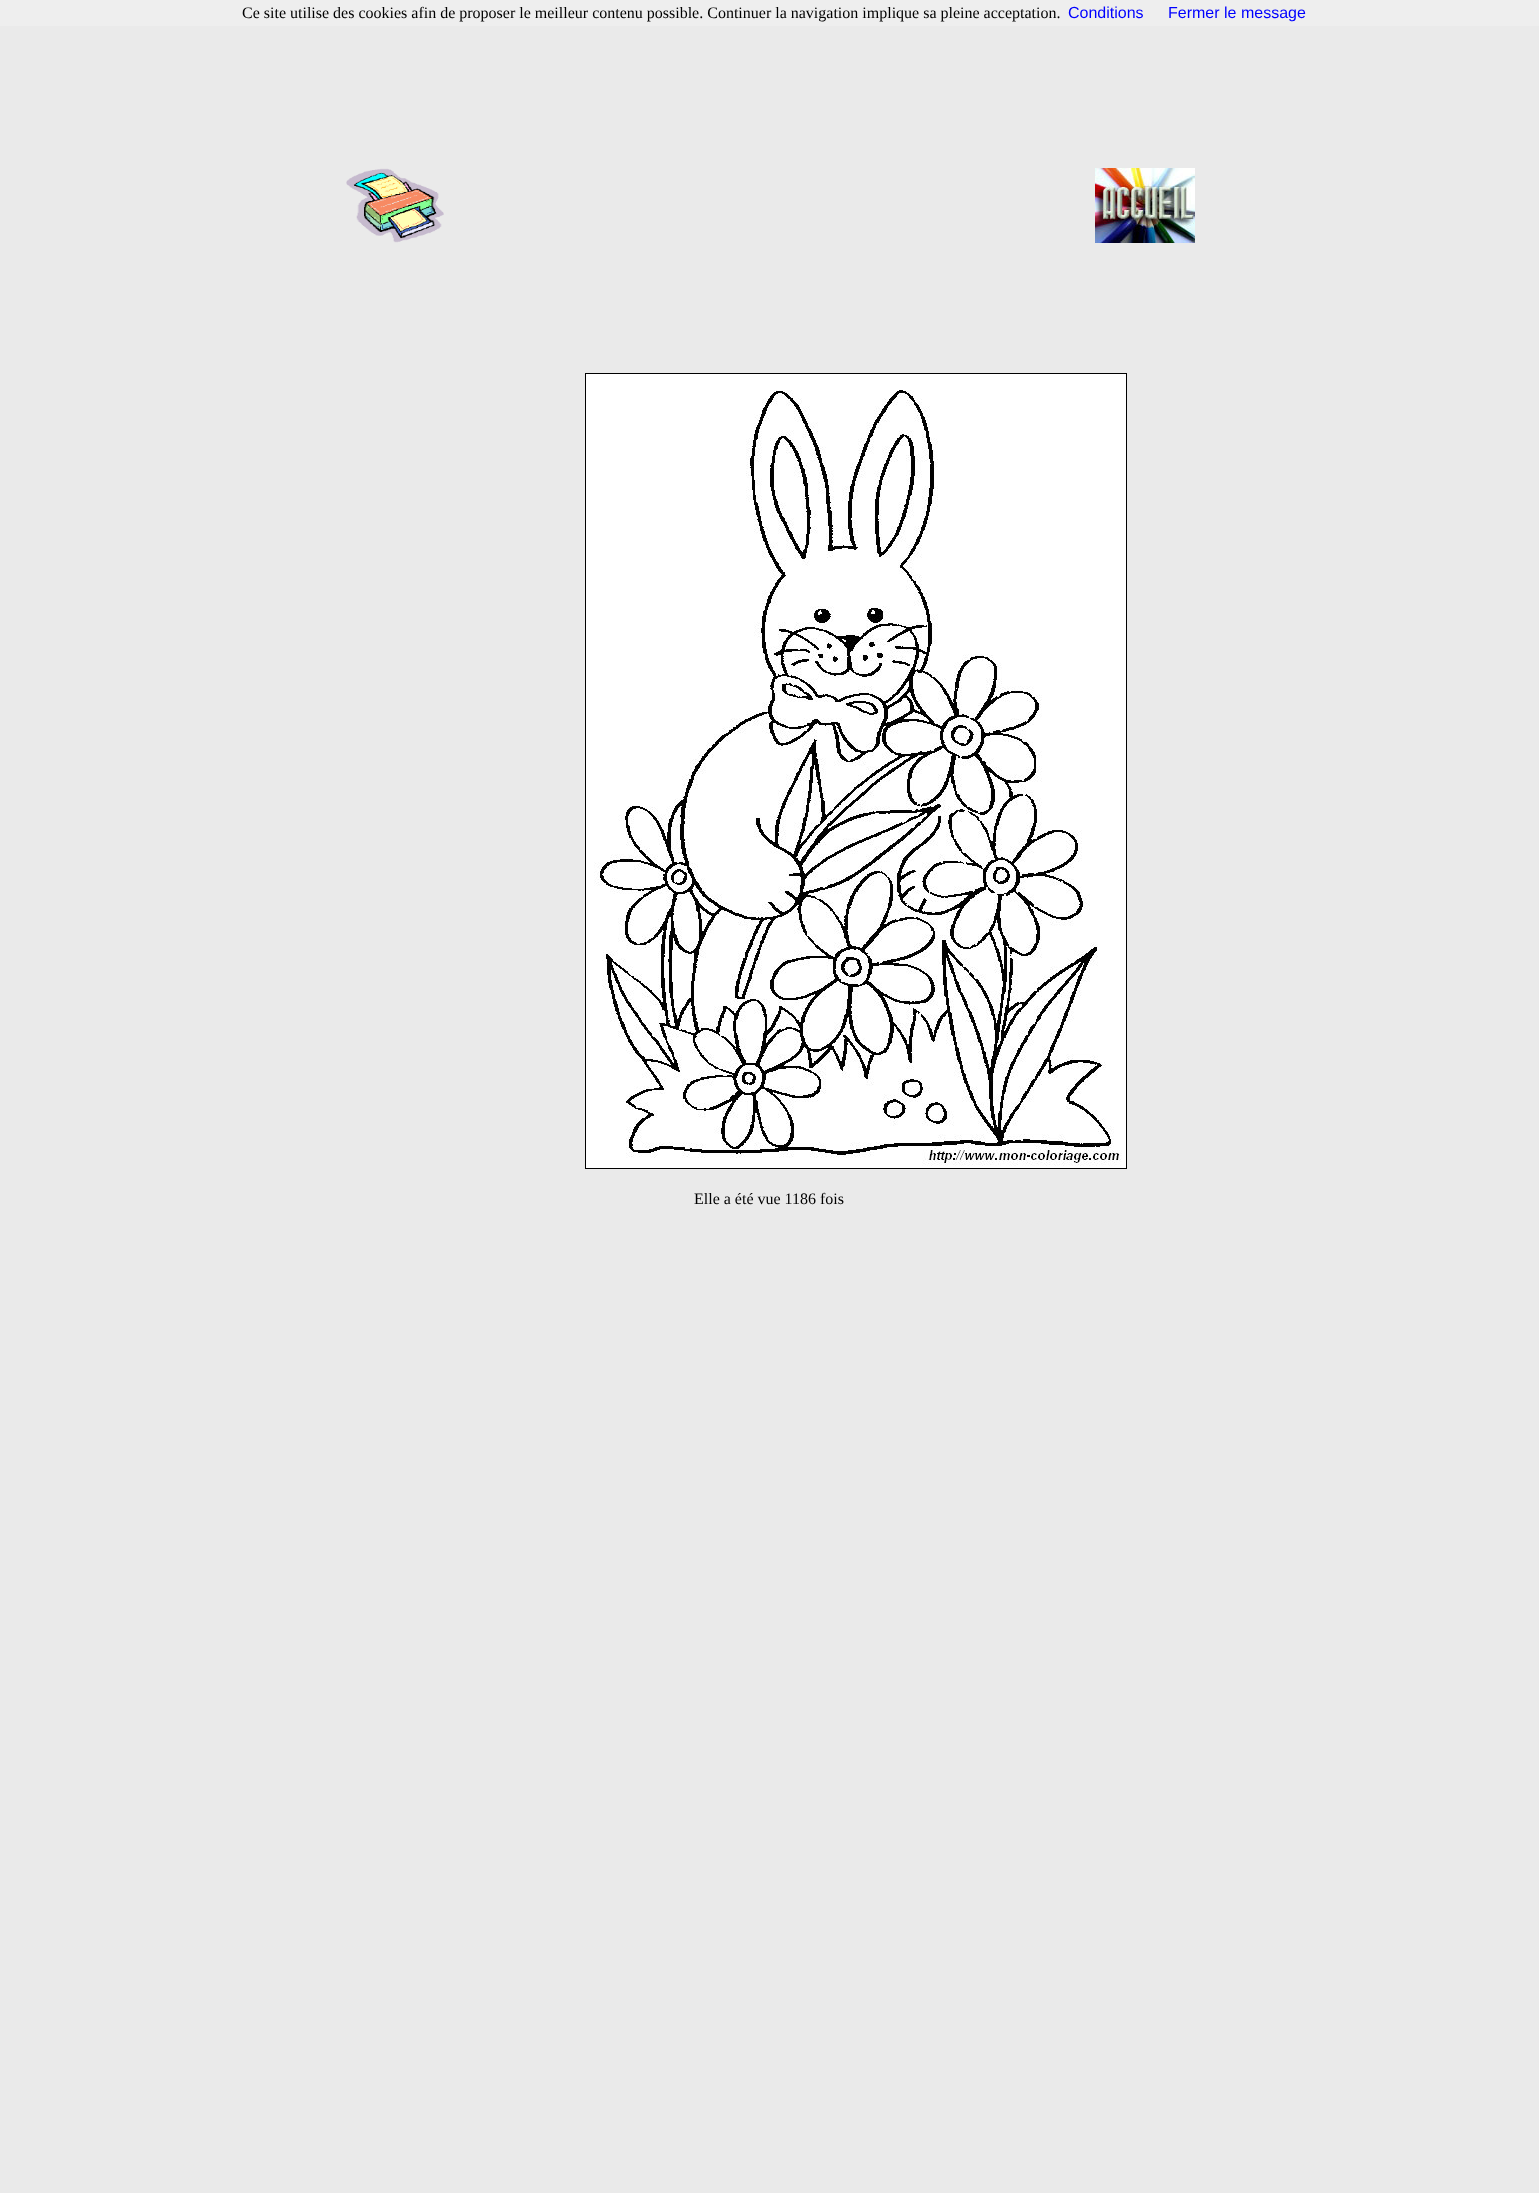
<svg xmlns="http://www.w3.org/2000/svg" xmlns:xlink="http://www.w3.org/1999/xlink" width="1539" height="2193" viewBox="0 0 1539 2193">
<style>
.cls-1{font:16px Liberation Serif;fill:#000000}
.cls-2{font:16px Liberation Sans;fill:#0000ff}
</style>
<rect width="100%" height="100%" fill="#eaeaea"/>
<rect fill="#eeeeee" x="0" y="0" width="1539" height="26"/>
<image xlink:href="image0.png" x="346" y="168" width="98" height="75"/>
<image xlink:href="image1.png" x="1095" y="168" width="100" height="75"/>
<rect fill="none" stroke="#000000" x="585.5" y="373.5" width="541" height="795"/>
<image xlink:href="image2.png" x="586" y="374" width="540" height="794"/>
<text class="cls-1" x="242" y="18">Ce site utilise des cookies afin de proposer le meilleur contenu possible. Continuer la navigation implique sa pleine acceptation.</text>
<text class="cls-2" x="1068" y="18">Conditions</text>
<text class="cls-2" x="1168" y="18">Fermer le message</text>
<text class="cls-1" x="694" y="1204">Elle a été vue 1186 fois</text>
</svg>
